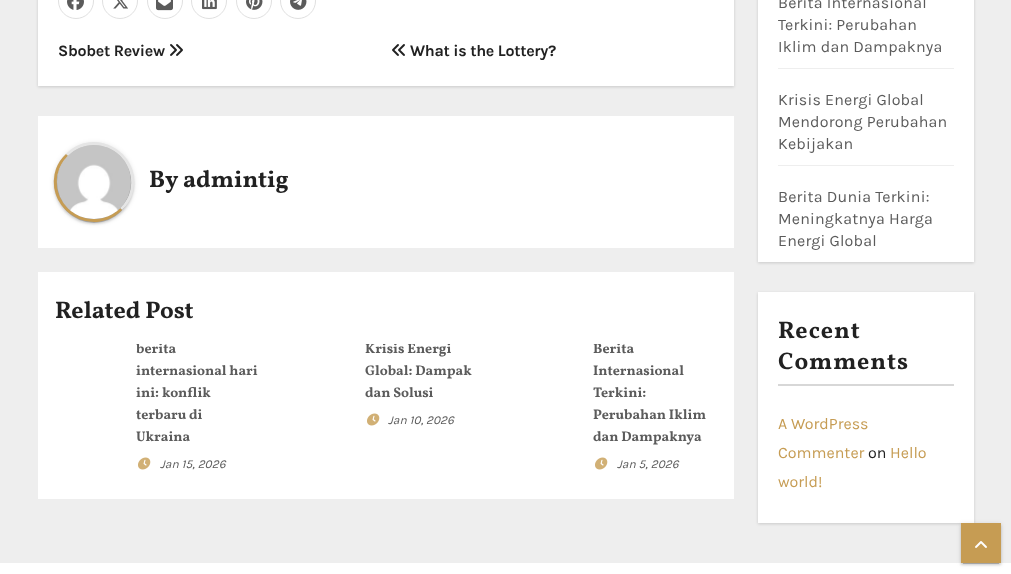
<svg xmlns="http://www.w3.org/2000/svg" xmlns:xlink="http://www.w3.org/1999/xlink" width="1011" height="574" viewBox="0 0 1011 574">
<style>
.cls-1{font:bold 16px Karla;letter-spacing:-0.3px;fill:#212121}
.cls-2{font:bold 24px Vollkorn;fill:#212121}
.cls-3{font:bold 14px Vollkorn;fill:#5b5b5b}
.cls-4{font:italic 12px Karla;fill:#5b5b5b}
.cls-5{font:16px Karla;letter-spacing:0.2px;fill:#5b5b5b}
.cls-6{font:bold 24px Vollkorn;letter-spacing:1px;fill:#212121}
.cls-7{font:16px Karla;fill:#c69c53}
.cls-8{font:16px Karla;fill:#212121}
</style>
<defs>
<clipPath id="clip1"><rect x="55" y="344" width="204" height="130"/></clipPath>
<clipPath id="clip2"><rect x="283" y="344" width="205" height="86"/></clipPath>
<clipPath id="clip3"><rect x="512" y="344" width="204" height="130"/></clipPath>
</defs>
<rect width="100%" height="100%" fill="#eeeeee"/>
<rect fill="#000000" fill-opacity="0.15" filter="blur(1.5px)" x="38" y="-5" width="696" height="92"/>
<rect fill="#ffffff" x="38" y="0" width="696" height="86"/>
<circle fill="none" stroke="#e0e0e0" cx="76" cy="1" r="17.5"/>
<image xlink:href="image0.png" x="67" y="0" width="17" height="10"/>
<circle fill="none" stroke="#e0e0e0" cx="120" cy="1" r="17.5"/>
<image xlink:href="image1.png" x="113" y="0" width="15" height="9"/>
<circle fill="none" stroke="#e0e0e0" cx="165" cy="1" r="17.5"/>
<image xlink:href="image2.png" x="156" y="0" width="17" height="11"/>
<circle fill="none" stroke="#e0e0e0" cx="209" cy="1" r="17.5"/>
<image xlink:href="image3.png" x="202" y="0" width="15" height="10"/>
<circle fill="none" stroke="#e0e0e0" cx="254" cy="1" r="17.5"/>
<image xlink:href="image4.png" x="246" y="0" width="17" height="10"/>
<circle fill="none" stroke="#e0e0e0" cx="298" cy="1" r="17.5"/>
<image xlink:href="image5.png" x="290" y="0" width="17" height="10"/>
<image xlink:href="image6.png" x="170" y="44" width="13" height="12"/>
<image xlink:href="image7.png" x="392" y="44" width="13" height="12"/>
<rect fill="#ffffff" x="38" y="116" width="696" height="132"/>
<rect fill="#000000" fill-opacity="0.12" filter="blur(2.5px)" x="54" y="143" width="80" height="80" rx="40"/>
<rect fill="#000000" fill-opacity="0.14" filter="blur(1px)" x="54" y="144" width="80" height="80" rx="40"/>
<rect fill="#000000" fill-opacity="0.2" filter="blur(0.5px)" x="56" y="147" width="76" height="76" rx="38"/>
<path fill="none" stroke="#e5e5e5" stroke-width="3" d="M67 155C93.5 128 139 152.5 132 189.5C130.5 197 126.5 204 121 209"/>
<path fill="none" stroke="#c69c53" stroke-width="3" d="M121 209C94.5 236 49 211.5 56 174.5C57.5 167 61.5 160 67 155"/>
<image xlink:href="image8.png" x="57" y="145" width="74" height="74"/>
<rect fill="#ffffff" x="38" y="272" width="696" height="227"/>
<image xlink:href="image9.png" x="138" y="457" width="13" height="13"/>
<image xlink:href="image9.png" x="367" y="413" width="13" height="13"/>
<image xlink:href="image9.png" x="595" y="457" width="13" height="13"/>
<rect fill="#000000" fill-opacity="0.15" filter="blur(1.5px)" x="758" y="-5" width="216" height="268"/>
<rect fill="#ffffff" x="758" y="0" width="216" height="262"/>
<rect fill="#eeeeee" x="778" y="68" width="176" height="1"/>
<rect fill="#eeeeee" x="778" y="165" width="176" height="1"/>
<rect fill="#000000" fill-opacity="0.15" filter="blur(1.5px)" x="758" y="293" width="216" height="231"/>
<rect fill="#ffffff" x="758" y="292" width="216" height="231"/>
<rect fill="#d7d7d7" x="778" y="384" width="176" height="2"/>
<rect fill="#ffffff" x="0" y="563" width="1011" height="11"/>
<rect fill="#000000" fill-opacity="0.12" filter="blur(2.5px)" x="961" y="524" width="40" height="40"/>
<rect fill="#000000" fill-opacity="0.2" filter="blur(0.5px)" x="963" y="528" width="36" height="36"/>
<rect fill="#000000" fill-opacity="0.14" filter="blur(1px)" x="961" y="525" width="40" height="40"/>
<rect fill="#c69c53" x="961" y="523" width="40" height="40"/>
<image xlink:href="image10.png" x="975" y="541" width="12" height="7"/>
<text class="cls-1" x="58" y="56">Sbobet Review</text>
<text class="cls-1" x="410" y="56">What is the Lottery?</text>
<text class="cls-2" x="149" y="187">By admintig</text>
<text class="cls-2" x="55" y="318">Related Post</text>
<g clip-path="url(#clip1)">
<text class="cls-3" x="136" y="353">berita</text>
</g>
<text class="cls-3"><tspan x="136" y="375">internasional hari</tspan><tspan x="136" y="397">ini: konflik</tspan><tspan x="136" y="419">terbaru di</tspan><tspan x="136" y="441">Ukraina</tspan></text>
<text class="cls-4" x="160" y="468">Jan 15, 2026</text>
<g clip-path="url(#clip2)">
<text class="cls-3" x="365" y="353">Krisis Energi</text>
</g>
<text class="cls-3"><tspan x="365" y="375">Global: Dampak</tspan><tspan x="365" y="397">dan Solusi</tspan></text>
<text class="cls-4" x="388" y="424">Jan 10, 2026</text>
<g clip-path="url(#clip3)">
<text class="cls-3" x="593" y="353">Berita</text>
</g>
<text class="cls-3"><tspan x="593" y="375">Internasional</tspan><tspan x="593" y="397">Terkini:</tspan><tspan x="593" y="419">Perubahan Iklim</tspan><tspan x="593" y="441">dan Dampaknya</tspan></text>
<text class="cls-4" x="617" y="468">Jan 5, 2026</text>
<text class="cls-5"><tspan x="778" y="8">Berita Internasional</tspan><tspan x="778" y="30">Terkini: Perubahan</tspan><tspan x="778" y="52">Iklim dan Dampaknya</tspan></text>
<text class="cls-5"><tspan x="778" y="105">Krisis Energi Global</tspan><tspan x="778" y="127">Mendorong Perubahan</tspan><tspan x="778" y="149">Kebijakan</tspan></text>
<text class="cls-5"><tspan x="778" y="202">Berita Dunia Terkini:</tspan><tspan x="778" y="224">Meningkatnya Harga</tspan><tspan x="778" y="246">Energi Global</tspan></text>
<text class="cls-6"><tspan x="778" y="338">Recent</tspan><tspan x="778" y="369">Comments</tspan></text>
<text class="cls-7"><tspan x="778" y="429">A WordPress</tspan><tspan x="778" y="458">Commenter</tspan></text>
<text class="cls-8" x="868" y="458">on</text>
<text class="cls-7" x="890" y="458">Hello</text>
<text class="cls-7" x="778" y="487">world!</text>
</svg>
